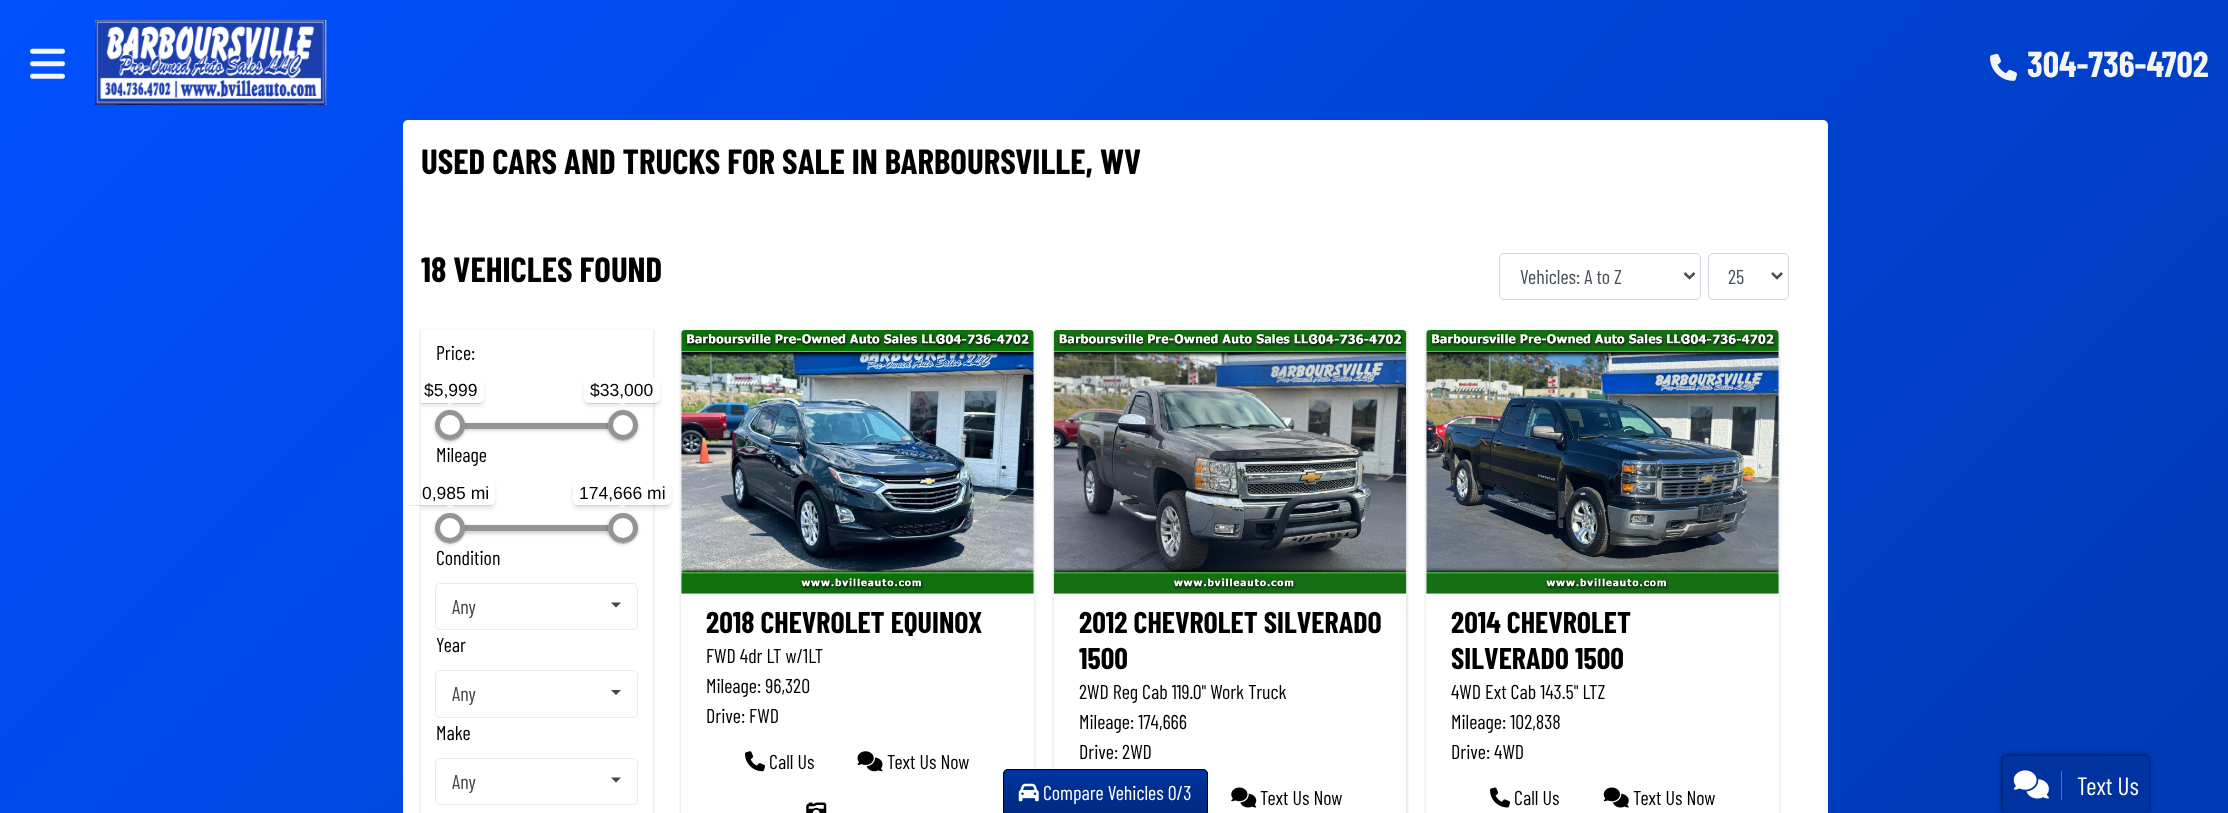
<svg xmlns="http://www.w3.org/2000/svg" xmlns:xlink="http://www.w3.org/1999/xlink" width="2228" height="813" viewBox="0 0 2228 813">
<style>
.cls-1{font:bold 36px Barlow Condensed;fill:#f5f5f5}
.cls-2{font:bold 35px Barlow Condensed;fill:#000000}
.cls-3{font:20px Barlow Condensed;fill:#495057}
.cls-4{font:20px Barlow Condensed;fill:#000000}
.cls-5{font:17.5px Liberation Sans;fill:#000000}
.cls-6{font:20px Barlow Condensed;fill:#444444}
.cls-7{font:bold 30px Barlow Condensed;fill:#000000}
.cls-8{font:20px Barlow Condensed;fill:#ffffff}
.cls-9{font:25px Barlow Condensed;fill:#ffffff}
</style>
<defs>
<linearGradient id="g1" gradientUnits="userSpaceOnUse" x1="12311" y1="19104" x2="-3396" y2="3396"><stop offset="0" stop-color="#000000"/><stop offset="0.33" stop-color="#0051ff"/><stop offset="0.67" stop-color="#000000"/><stop offset="1" stop-color="#0051ff"/></linearGradient>
<clipPath id="clip1"><path d="M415 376H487V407H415ZM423 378H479C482 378 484 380 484 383V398C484 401 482 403 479 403H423C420 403 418 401 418 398V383C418 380 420 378 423 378Z" clip-rule="evenodd"/></clipPath>
<clipPath id="clip2"><rect x="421" y="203" width="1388" height="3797"/></clipPath>
<clipPath id="clip3"><path d="M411 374H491V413H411ZM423 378H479C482 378 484 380 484 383V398C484 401 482 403 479 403H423C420 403 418 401 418 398V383C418 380 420 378 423 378Z" clip-rule="evenodd"/></clipPath>
<clipPath id="clip4"><rect x="421" y="203" width="1388" height="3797"/></clipPath>
<clipPath id="clip5"><path d="M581 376H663V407H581ZM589 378H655C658 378 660 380 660 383V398C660 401 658 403 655 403H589C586 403 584 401 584 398V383C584 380 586 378 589 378Z" clip-rule="evenodd"/></clipPath>
<clipPath id="clip6"><path d="M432 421H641V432H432ZM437.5 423H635.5C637 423 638 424 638 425.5C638 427 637 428 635.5 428H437.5C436 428 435 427 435 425.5C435 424 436 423 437.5 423Z" clip-rule="evenodd"/></clipPath>
<clipPath id="clip7"><path d="M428 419H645V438H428ZM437.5 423H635.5C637 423 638 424 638 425.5C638 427 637 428 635.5 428H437.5C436 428 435 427 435 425.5C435 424 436 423 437.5 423Z" clip-rule="evenodd"/></clipPath>
<clipPath id="clip8"><path d="M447 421H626V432H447ZM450 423H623V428H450Z" clip-rule="evenodd"/></clipPath>
<clipPath id="clip9"><path d="M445 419H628V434H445ZM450 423H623V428H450Z" clip-rule="evenodd"/></clipPath>
<clipPath id="clip10"><path d="M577 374H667V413H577ZM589 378H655C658 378 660 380 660 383V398C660 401 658 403 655 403H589C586 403 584 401 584 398V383C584 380 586 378 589 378Z" clip-rule="evenodd"/></clipPath>
<clipPath id="clip11"><path d="M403 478H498V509H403ZM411 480H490C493 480 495 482 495 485V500C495 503 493 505 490 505H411C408 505 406 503 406 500V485C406 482 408 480 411 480Z" clip-rule="evenodd"/></clipPath>
<clipPath id="clip12"><path d="M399 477H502V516H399ZM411 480H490C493 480 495 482 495 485V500C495 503 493 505 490 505H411C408 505 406 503 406 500V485C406 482 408 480 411 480Z" clip-rule="evenodd"/></clipPath>
<clipPath id="clip13"><path d="M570 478H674V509H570ZM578 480H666C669 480 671 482 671 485V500C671 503 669 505 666 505H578C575 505 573 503 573 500V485C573 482 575 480 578 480Z" clip-rule="evenodd"/></clipPath>
<clipPath id="clip14"><path d="M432 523H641V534H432ZM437.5 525H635.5C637 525 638 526 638 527.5C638 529 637 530 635.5 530H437.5C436 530 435 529 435 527.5C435 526 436 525 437.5 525Z" clip-rule="evenodd"/></clipPath>
<clipPath id="clip15"><path d="M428 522H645V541H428ZM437.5 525H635.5C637 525 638 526 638 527.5C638 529 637 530 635.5 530H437.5C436 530 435 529 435 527.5C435 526 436 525 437.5 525Z" clip-rule="evenodd"/></clipPath>
<clipPath id="clip16"><rect x="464" y="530" width="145" height="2"/></clipPath>
<clipPath id="clip17"><path d="M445 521H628V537H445ZM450 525H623V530H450Z" clip-rule="evenodd"/></clipPath>
<clipPath id="clip18"><path d="M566 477H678V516H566ZM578 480H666C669 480 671 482 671 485V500C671 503 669 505 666 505H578C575 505 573 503 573 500V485C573 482 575 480 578 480Z" clip-rule="evenodd"/></clipPath>
<clipPath id="clip19"><path d="M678 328H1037V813H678ZM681 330H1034V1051H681Z" clip-rule="evenodd"/></clipPath>
<clipPath id="clip20"><path d="M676 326H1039V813H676ZM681 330H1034V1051H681Z" clip-rule="evenodd"/></clipPath>
<clipPath id="clip21"><path d="M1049 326H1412V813H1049ZM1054 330H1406V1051H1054Z" clip-rule="evenodd"/></clipPath>
<clipPath id="clip22"><path d="M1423 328H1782V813H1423ZM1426 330H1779V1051H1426Z" clip-rule="evenodd"/></clipPath>
<clipPath id="clip23"><path d="M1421 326H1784V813H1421ZM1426 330H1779V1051H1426Z" clip-rule="evenodd"/></clipPath>
<linearGradient id="g2" gradientUnits="userSpaceOnUse" x1="1105" y1="770" x2="1105" y2="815"><stop offset="0" stop-color="#000000" stop-opacity="0"/><stop offset="1" stop-color="#000000" stop-opacity="0.2"/></linearGradient>
</defs>
<rect width="100%" height="100%" fill="#ffffff"/>
<rect fill="url(#g1)" x="0" y="0" width="2228" height="813"/>
<image xlink:href="image0.png" x="30" y="48" width="35" height="31"/>
<image xlink:href="image1.png" x="95" y="20" width="232" height="85"/>
<image xlink:href="image2.png" x="1990" y="53" width="27" height="28"/>
<rect fill="#ffffff" x="403" y="120" width="1425" height="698" rx="5"/>
<rect fill="none" stroke="#ced4da" x="1499.5" y="253.5" width="201" height="46" rx="4.5"/>
<path fill="none" stroke="#495057" stroke-width="2.5" d="M1684.5 273L1689.5 278L1694.5 273"/>
<rect fill="none" stroke="#ced4da" x="1708.5" y="253.5" width="80" height="46" rx="4.5"/>
<path fill="none" stroke="#495057" stroke-width="2.5" d="M1772 273L1777 278L1782 273"/>
<rect fill="#000000" fill-opacity="0.2" filter="blur(0.5px)" x="421" y="331" width="232" height="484"/>
<rect fill="#000000" fill-opacity="0.1" filter="blur(1px)" x="420" y="330" width="234" height="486"/>
<rect fill="#ffffff" x="421" y="330" width="232" height="483"/>
<g clip-path="url(#clip1)">
<rect fill="#000000" fill-opacity="0.1" filter="blur(0.5px)" x="418" y="379" width="66" height="25" rx="5"/>
</g>
<g clip-path="url(#clip2)">
<g clip-path="url(#clip3)">
<rect fill="#000000" fill-opacity="0.1" filter="blur(2px)" x="418" y="381" width="66" height="25" rx="5"/>
</g>
</g>
<g clip-path="url(#clip4)">
<rect fill="#ffffff" fill-opacity="0.6" x="418" y="378" width="66" height="25" rx="5"/>
</g>
<path fill="#ffffff" fill-opacity="0.6" d="M446 402.5H454L450 406Z"/>
<g clip-path="url(#clip5)">
<rect fill="#000000" fill-opacity="0.1" filter="blur(0.5px)" x="584" y="379" width="76" height="25" rx="5"/>
</g>
<g clip-path="url(#clip6)">
<rect fill="#000000" fill-opacity="0.1" filter="blur(0.5px)" x="435" y="424" width="203" height="5" rx="2.5"/>
</g>
<g clip-path="url(#clip7)">
<rect fill="#000000" fill-opacity="0.1" filter="blur(2px)" x="435" y="426" width="203" height="5" rx="2.5"/>
</g>
<rect fill="#ffffff" fill-opacity="0.6" x="435" y="423" width="203" height="5" rx="2.5"/>
<g clip-path="url(#clip8)">
<rect fill="#000000" fill-opacity="0.2" filter="blur(0.5px)" x="450" y="424" width="173" height="5"/>
</g>
<g clip-path="url(#clip9)">
<rect fill="#000000" fill-opacity="0.1" filter="blur(1px)" x="449" y="423" width="175" height="7"/>
</g>
<rect fill="#4d4d4d" fill-opacity="0.6" x="464" y="423" width="145" height="5"/>
<rect fill="#000000" fill-opacity="0.2" filter="blur(0.5px)" x="608" y="411" width="30" height="30" rx="15"/>
<rect fill="#000000" fill-opacity="0.1" filter="blur(1px)" x="606" y="410" width="33" height="33" rx="16.5"/>
<circle fill="#ffffff" cx="623" cy="425" r="15"/>
<circle fill="none" stroke="#4d4d4d" stroke-opacity="0.6" stroke-width="5" cx="623" cy="425" r="12.5"/>
<g clip-path="url(#clip10)">
<rect fill="#000000" fill-opacity="0.1" filter="blur(2px)" x="584" y="381" width="76" height="25" rx="5"/>
</g>
<rect fill="#ffffff" fill-opacity="0.6" x="584" y="378" width="76" height="25" rx="5"/>
<path fill="#ffffff" fill-opacity="0.6" d="M619 402.5H626L622.5 406Z"/>
<rect fill="#000000" fill-opacity="0.2" filter="blur(0.5px)" x="435" y="411" width="30" height="30" rx="15"/>
<rect fill="#000000" fill-opacity="0.1" filter="blur(1px)" x="434" y="410" width="32" height="33" rx="16"/>
<circle fill="#ffffff" cx="450" cy="425" r="15"/>
<circle fill="none" stroke="#4d4d4d" stroke-opacity="0.6" stroke-width="5" cx="450" cy="425" r="12.5"/>
<g clip-path="url(#clip11)">
<rect fill="#000000" fill-opacity="0.1" filter="blur(0.5px)" x="406" y="481" width="89" height="25" rx="5"/>
</g>
<g clip-path="url(#clip2)">
<g clip-path="url(#clip12)">
<rect fill="#000000" fill-opacity="0.1" filter="blur(2px)" x="406" y="484" width="89" height="25" rx="5"/>
</g>
</g>
<path fill="#ffffff" fill-opacity="0.6" d="M421 480H490C493 480 495 482 495 485V500C495 503 493 505 490 505H421Z"/>
<path fill="#ffffff" fill-opacity="0.6" d="M446 505H454L450 509Z"/>
<g clip-path="url(#clip13)">
<rect fill="#000000" fill-opacity="0.1" filter="blur(0.5px)" x="573" y="481" width="98" height="25" rx="5"/>
</g>
<g clip-path="url(#clip14)">
<rect fill="#000000" fill-opacity="0.1" filter="blur(0.5px)" x="435" y="526" width="203" height="5" rx="2.5"/>
</g>
<g clip-path="url(#clip15)">
<rect fill="#000000" fill-opacity="0.1" filter="blur(2px)" x="435" y="529" width="203" height="5" rx="2.5"/>
</g>
<rect fill="#ffffff" fill-opacity="0.6" x="435" y="525" width="203" height="5" rx="2.5"/>
<g clip-path="url(#clip16)">
<rect fill="#000000" fill-opacity="0.2" filter="blur(0.5px)" x="450" y="526" width="173" height="5"/>
</g>
<g clip-path="url(#clip17)">
<rect fill="#000000" fill-opacity="0.1" filter="blur(1px)" x="449" y="525" width="175" height="8"/>
</g>
<rect fill="#4d4d4d" fill-opacity="0.6" x="464" y="525" width="145" height="5"/>
<rect fill="#000000" fill-opacity="0.2" filter="blur(0.5px)" x="608" y="514" width="30" height="30" rx="15"/>
<rect fill="#000000" fill-opacity="0.1" filter="blur(1px)" x="606" y="513" width="33" height="32" rx="16"/>
<circle fill="#ffffff" cx="623" cy="528" r="15"/>
<circle fill="none" stroke="#4d4d4d" stroke-opacity="0.6" stroke-width="5" cx="623" cy="528" r="12.5"/>
<g clip-path="url(#clip18)">
<rect fill="#000000" fill-opacity="0.1" filter="blur(2px)" x="573" y="484" width="98" height="25" rx="5"/>
</g>
<rect fill="#ffffff" fill-opacity="0.6" x="573" y="480" width="98" height="25" rx="5"/>
<path fill="#ffffff" fill-opacity="0.6" d="M619 505H626L622.5 509Z"/>
<rect fill="#000000" fill-opacity="0.2" filter="blur(0.5px)" x="435" y="514" width="30" height="30" rx="15"/>
<rect fill="#000000" fill-opacity="0.1" filter="blur(1px)" x="434" y="513" width="32" height="32" rx="16"/>
<circle fill="#ffffff" cx="450" cy="528" r="15"/>
<circle fill="none" stroke="#4d4d4d" stroke-opacity="0.6" stroke-width="5" cx="450" cy="528" r="12.5"/>
<rect fill="none" stroke="#ebebeb" x="435.5" y="583.5" width="202" height="46" rx="4.5"/>
<path fill="#444444" d="M611 602.5H621L616 607.5Z"/>
<rect fill="none" stroke="#ebebeb" x="435.5" y="670.5" width="202" height="47" rx="4.5"/>
<path fill="#444444" d="M611 690H621L616 695Z"/>
<rect fill="none" stroke="#ebebeb" x="435.5" y="758.5" width="202" height="46" rx="4.5"/>
<path fill="#444444" d="M611 777.5H621L616 782.5Z"/>
<g clip-path="url(#clip19)">
<rect fill="#000000" fill-opacity="0.2" filter="blur(0.5px)" x="681" y="331" width="353" height="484"/>
</g>
<g clip-path="url(#clip20)">
<rect fill="#000000" fill-opacity="0.1" filter="blur(1px)" x="680" y="330" width="355" height="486"/>
</g>
<rect fill="#ffffff" fill-opacity="0.6" x="681" y="330" width="353" height="483"/>
<image xlink:href="image3.png" x="681" y="330" width="353" height="264"/>
<image xlink:href="image4.png" x="745" y="751" width="20" height="21"/>
<image xlink:href="image5.png" x="857" y="751" width="26" height="21"/>
<image xlink:href="image6.png" x="806" y="802" width="21" height="11"/>
<g clip-path="url(#clip21)">
<rect fill="#000000" fill-opacity="0.1" filter="blur(1px)" x="1053" y="330" width="355" height="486"/>
</g>
<image xlink:href="image7.png" x="1053" y="330" width="354" height="264"/>
<image xlink:href="image8.png" x="1231" y="787" width="26" height="21"/>
<g clip-path="url(#clip22)">
<rect fill="#000000" fill-opacity="0.2" filter="blur(0.5px)" x="1426" y="331" width="353" height="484"/>
</g>
<g clip-path="url(#clip23)">
<rect fill="#000000" fill-opacity="0.1" filter="blur(1px)" x="1425" y="330" width="355" height="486"/>
</g>
<rect fill="#ffffff" fill-opacity="0.6" x="1426" y="330" width="353" height="483"/>
<image xlink:href="image9.png" x="1426" y="330" width="353" height="264"/>
<image xlink:href="image10.png" x="1490" y="787" width="20" height="21"/>
<image xlink:href="image11.png" x="1603" y="787" width="26" height="21"/>
<rect fill="#0033a0" x="1003" y="769" width="205" height="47" rx="5"/>
<rect fill="url(#g2)" x="1003" y="775" width="205" height="38"/>
<rect fill="none" stroke="#000000" x="1003.5" y="769.5" width="204" height="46" rx="4.5"/>
<image xlink:href="image12.png" x="1018" y="783" width="21" height="19"/>
<rect fill="#000000" fill-opacity="0.25" filter="blur(1px)" x="2001" y="754" width="149" height="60" rx="6"/>
<rect fill="#000000" fill-opacity="0.15" filter="blur(2px)" x="2000" y="753" width="151" height="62" rx="8"/>
<path fill="#0033a0" d="M2008 756H2144C2147 756 2149 758 2149 761V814H2003V761C2003 758 2005 756 2008 756Z"/>
<rect fill="#4d70bd" x="2061" y="771" width="1" height="29"/>
<image xlink:href="image13.png" x="2013" y="770" width="36" height="29"/>
<text class="cls-1" x="2027" y="77">304-736-4702</text>
<text class="cls-2" x="421" y="174">USED CARS AND TRUCKS FOR SALE IN BARBOURSVILLE, WV</text>
<text class="cls-2" x="421" y="282">18 VEHICLES FOUND</text>
<text class="cls-3" x="1520" y="284">Vehicles: A to Z</text>
<text class="cls-3" x="1728" y="284">25</text>
<text class="cls-4" x="436" y="360">Price:</text>
<text class="cls-5" x="424" y="396">$5,999</text>
<text class="cls-5" x="590" y="396">$33,000</text>
<text class="cls-4" x="436" y="462">Mileage</text>
<text class="cls-5" x="422" y="499">0,985 mi</text>
<text class="cls-5" x="579" y="499">174,666 mi</text>
<text class="cls-4" x="436" y="565">Condition</text>
<text class="cls-6" x="452" y="614">Any</text>
<text class="cls-4" x="436" y="652">Year</text>
<text class="cls-6" x="452" y="701">Any</text>
<text class="cls-4" x="436" y="740">Make</text>
<text class="cls-6" x="452" y="789">Any</text>
<text class="cls-7" x="706" y="633">2018 CHEVROLET EQUINOX</text>
<text class="cls-4"><tspan x="706" y="663">FWD 4dr LT w/1LT</tspan><tspan x="706" y="693">Mileage: 96,320</tspan><tspan x="706" y="723">Drive: FWD</tspan></text>
<text class="cls-4" x="769" y="769">Call Us</text>
<text class="cls-4" x="887" y="769">Text Us Now</text>
<text class="cls-7"><tspan x="1079" y="633">2012 CHEVROLET SILVERADO</tspan><tspan x="1079" y="669">1500</tspan></text>
<text class="cls-4"><tspan x="1079" y="699">2WD Reg Cab 119.0" Work Truck</tspan><tspan x="1079" y="729">Mileage: 174,666</tspan><tspan x="1079" y="759">Drive: 2WD</tspan></text>
<text class="cls-4" x="1260" y="805">Text Us Now</text>
<text class="cls-7"><tspan x="1451" y="633">2014 CHEVROLET</tspan><tspan x="1451" y="669">SILVERADO 1500</tspan></text>
<text class="cls-4"><tspan x="1451" y="699">4WD Ext Cab 143.5" LTZ</tspan><tspan x="1451" y="729">Mileage: 102,838</tspan><tspan x="1451" y="759">Drive: 4WD</tspan></text>
<text class="cls-4" x="1514" y="805">Call Us</text>
<text class="cls-4" x="1633" y="805">Text Us Now</text>
<text class="cls-8" x="1043" y="800">Compare Vehicles 0/3</text>
<text class="cls-9" x="2077" y="795">Text Us</text>
</svg>
